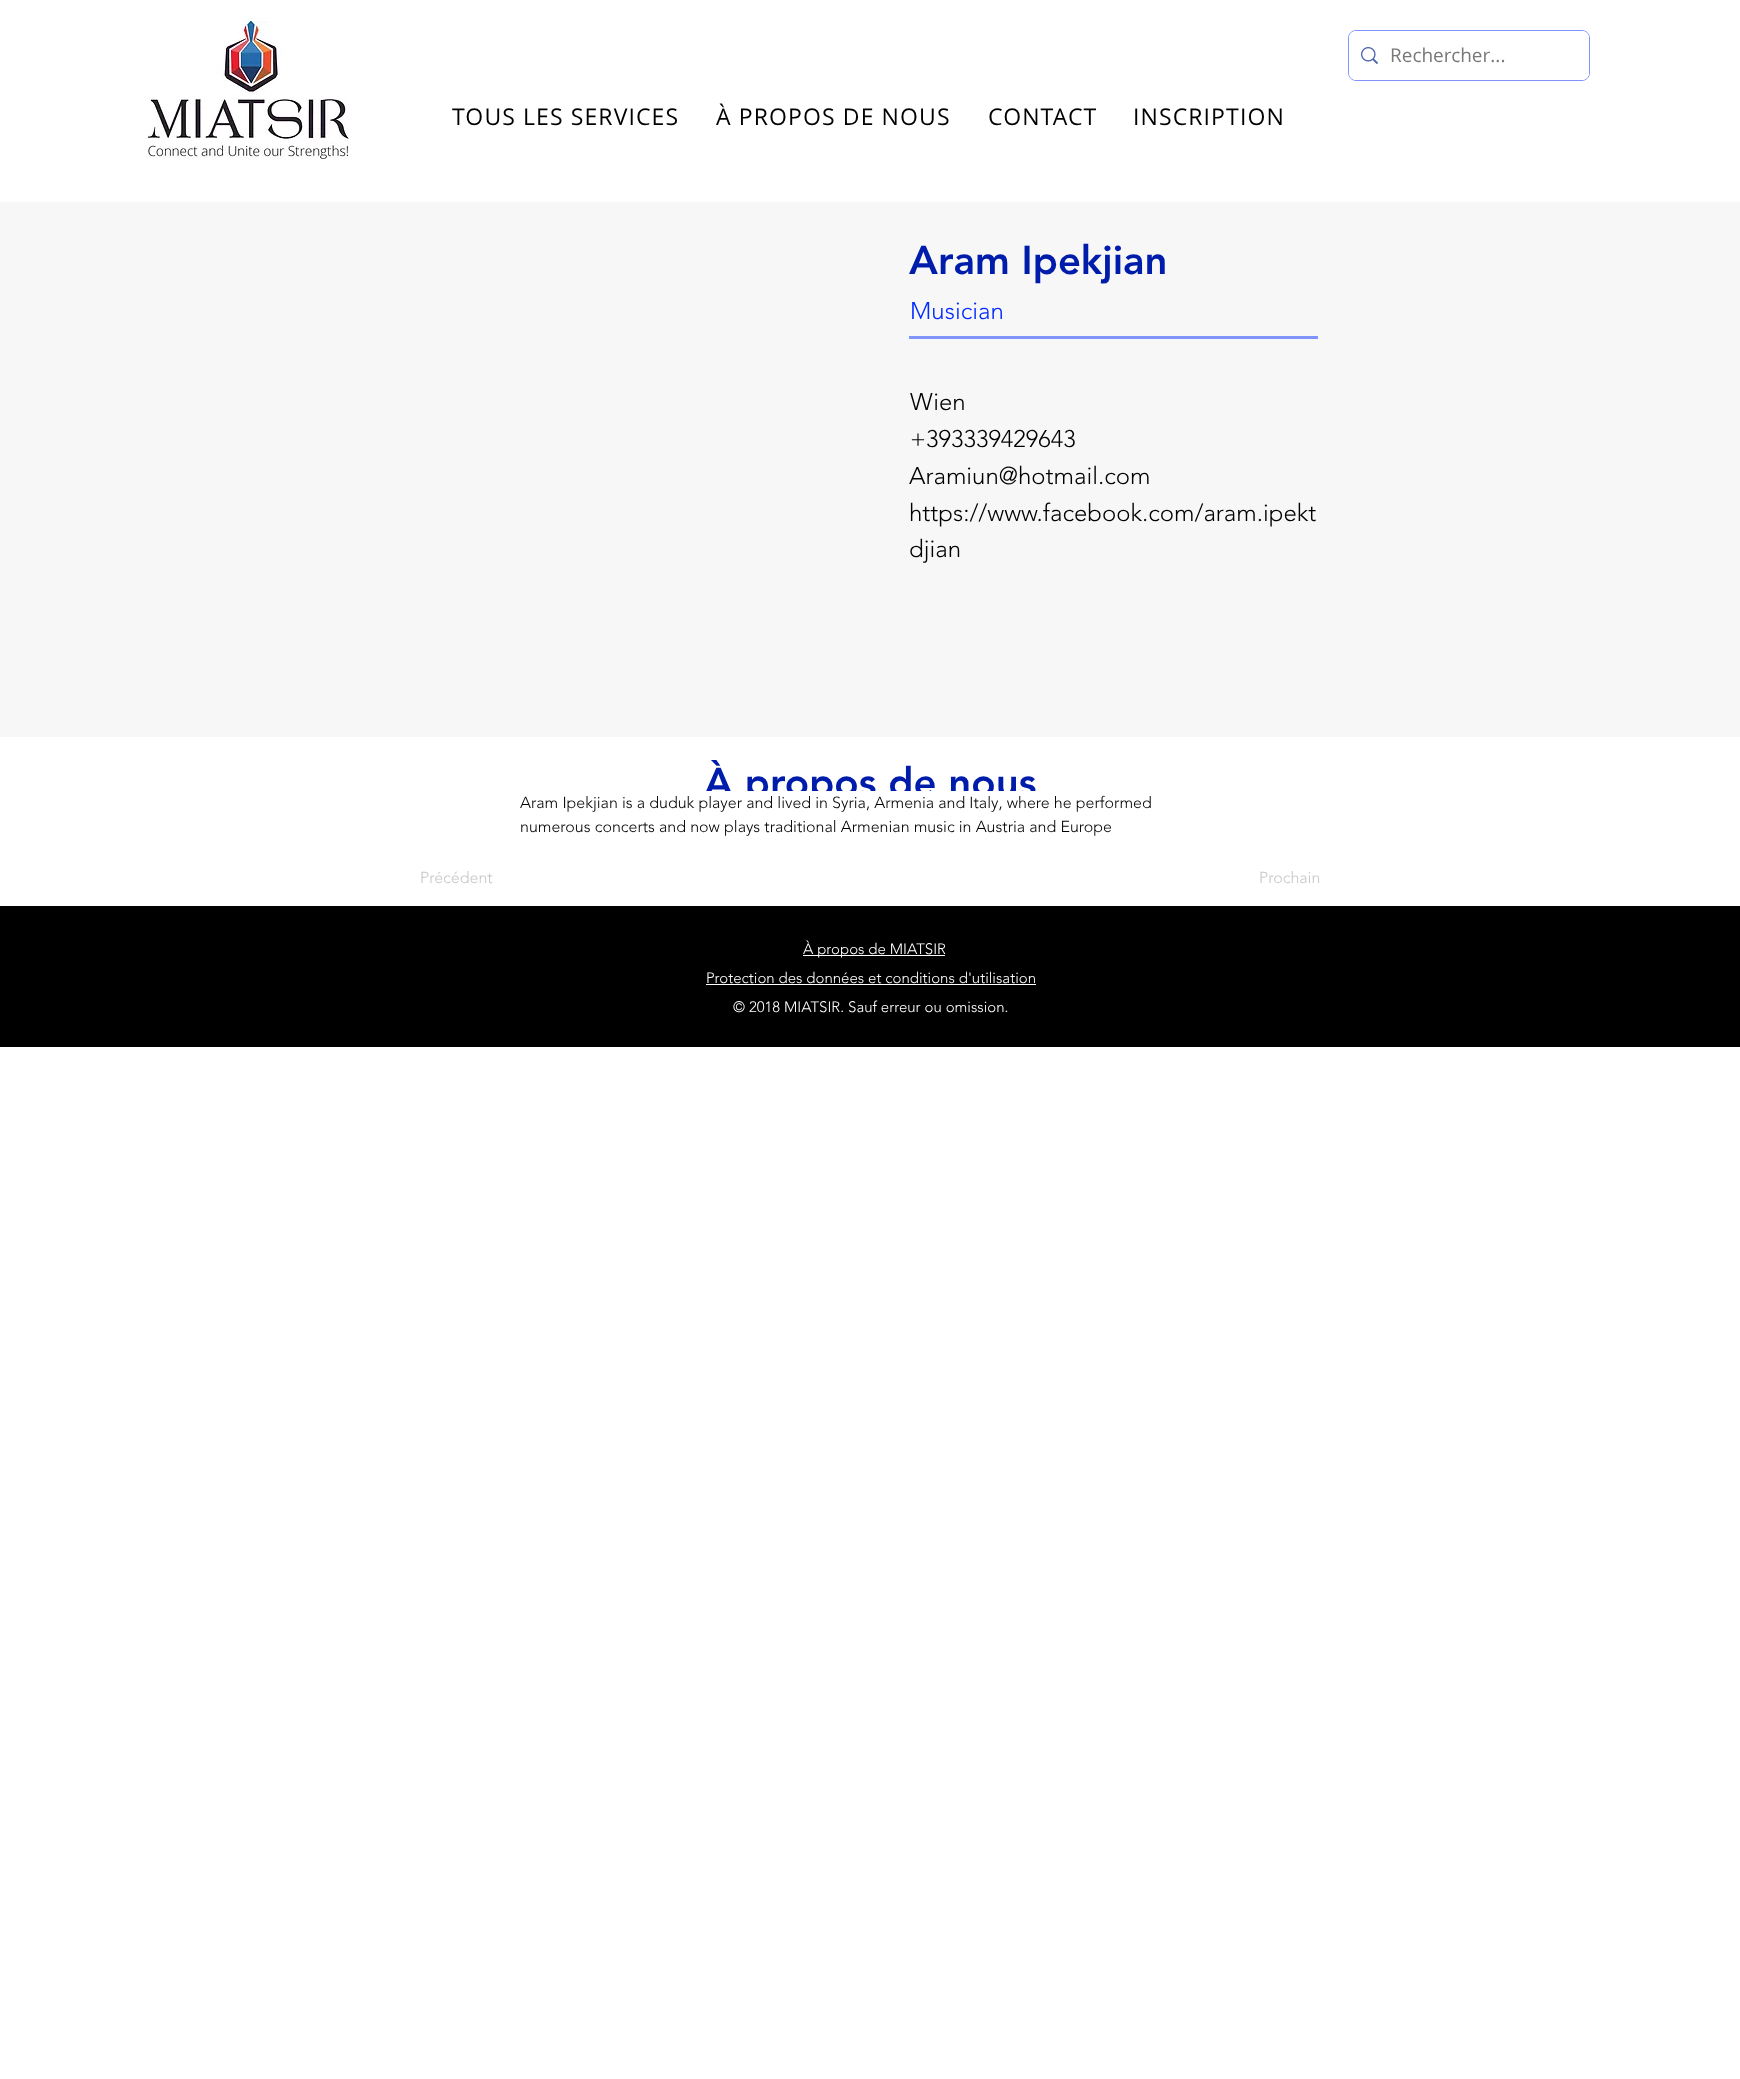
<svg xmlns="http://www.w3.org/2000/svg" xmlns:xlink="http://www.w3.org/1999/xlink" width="1740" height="2079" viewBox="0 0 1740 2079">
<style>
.cls-1{font:19px Open Sans;fill:#787878}
.cls-2{font:23px Open Sans;letter-spacing:1.1px;fill:#000000}
.cls-3{font:900 40px 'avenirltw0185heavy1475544';fill:#001caa}
.cls-4{font:300 24px 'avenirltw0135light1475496';fill:#002aff}
.cls-5{font:300 24px 'avenirltw0135light1475496';fill:#000000}
.cls-6{font:300 16px 'avenirltw0135light1475496';fill:#000000}
.cls-7{font:300 16px 'avenirltw0135light1475496';fill:#c7c7c7}
.cls-8{font:300 15px 'avenirltw0135light1475496';fill:#ffffff}
</style>
<rect width="100%" height="100%" fill="#ffffff"/>
<image xlink:href="image0.png" x="146" y="18" width="203" height="143"/>
<rect fill="none" stroke="#8094ff" x="1348.5" y="30.5" width="241" height="50" rx="7.5"/>
<rect fill="#ffffff" x="1349" y="31" width="240" height="49" rx="7"/>
<image xlink:href="image1.png" x="1361" y="47" width="17" height="17"/>
<rect fill="#f7f7f7" x="0" y="202" width="1740" height="535"/>
<rect fill="#8094ff" x="909" y="336" width="409" height="3"/>
<rect fill="#000000" x="0" y="906" width="1740" height="141"/>
<rect fill="#ffffff" x="803" y="955" width="142" height="1"/>
<rect fill="#ffffff" x="706" y="984" width="330" height="1"/>
<text class="cls-1" x="1390" y="62">Rechercher...</text>
<text class="cls-2" x="452" y="125">TOUS LES SERVICES</text>
<text class="cls-2" x="716" y="125">À PROPOS DE NOUS</text>
<text class="cls-2" x="988" y="125">CONTACT</text>
<text class="cls-2" x="1133" y="125">INSCRIPTION</text>
<text class="cls-3" x="909" y="274">Aram Ipekjian</text>
<text class="cls-4" x="910" y="319">Musician</text>
<text class="cls-5"><tspan x="910" y="410">Wien</tspan><tspan x="910" y="447">+393339429643</tspan></text>
<text class="cls-5"><tspan x="909" y="484">Aramiun@hotmail.com</tspan><tspan x="909" y="521">https://www.facebook.com/aram.ipekt</tspan><tspan x="909" y="557">djian</tspan></text>
<text class="cls-3" x="704" y="796">À propos de nous</text>
<rect fill="#ffffff" x="703" y="791" width="333" height="15"/>
<text class="cls-6"><tspan x="520" y="808">Aram Ipekjian is a duduk player and lived in Syria, Armenia and Italy, where he performed</tspan><tspan x="520" y="832">numerous concerts and now plays traditional Armenian music in Austria and Europe</tspan></text>
<text class="cls-7" x="420" y="883">Précédent</text>
<text class="cls-7" x="1259" y="883">Prochain</text>
<text class="cls-8" x="803" y="954">À propos de MIATSIR</text>
<text class="cls-8" x="706" y="983">Protection des données et conditions d'utilisation</text>
<text class="cls-8" x="733" y="1012">© 2018 MIATSIR. Sauf erreur ou omission.</text>
</svg>
